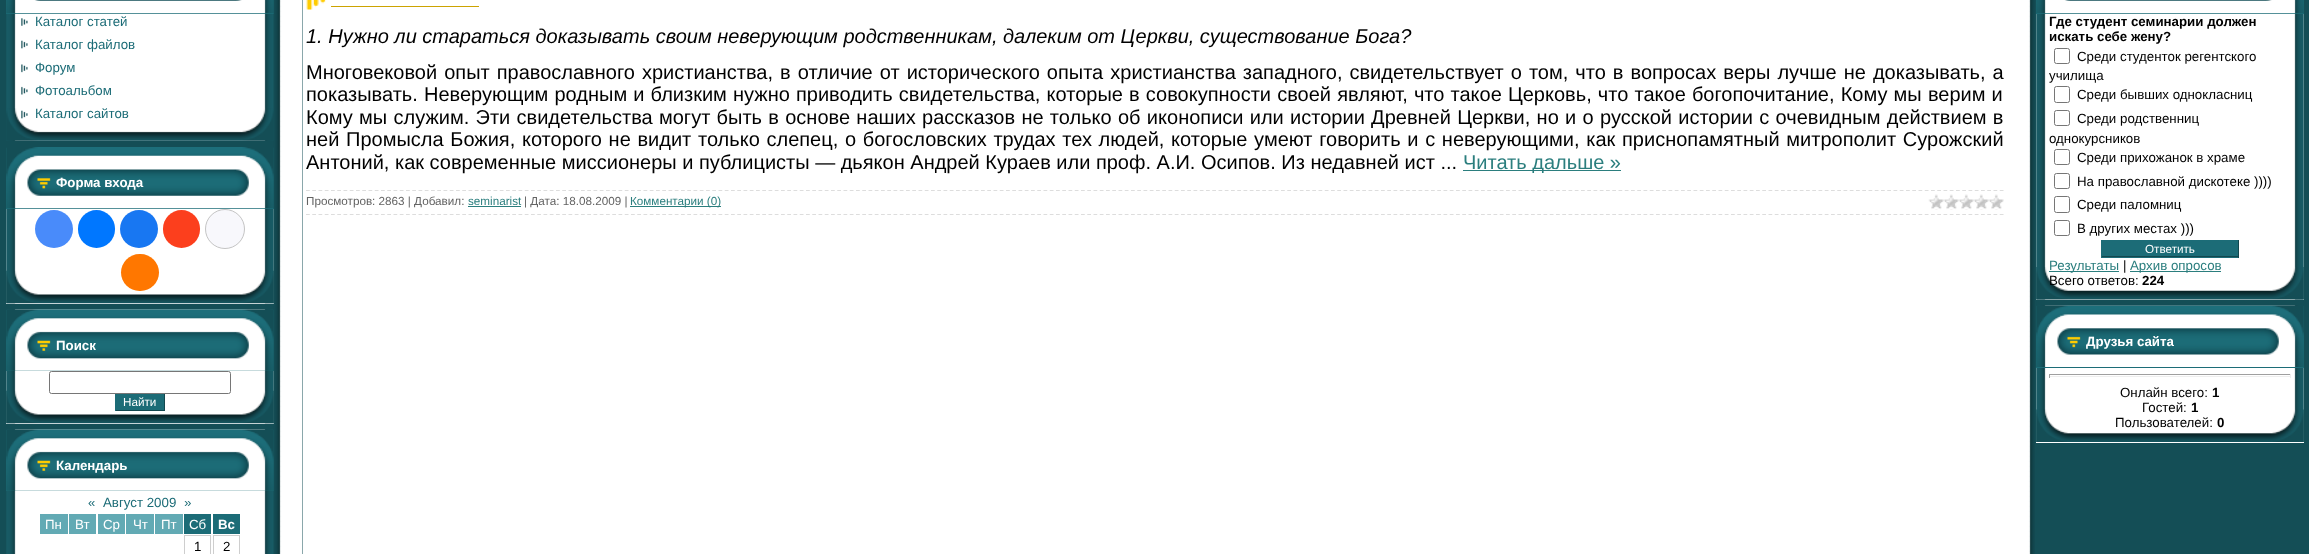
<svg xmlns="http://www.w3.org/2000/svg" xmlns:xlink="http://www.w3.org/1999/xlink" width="2309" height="554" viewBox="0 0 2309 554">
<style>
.cls-1{font:13.3px Liberation Sans;fill:#1c6c77}
.cls-2{font:bold 13.3px Liberation Sans;fill:#ffffff}
.cls-3{font:11.7px Liberation Sans;fill:#ffffff}
.cls-4{font:13.3px Liberation Sans;fill:#ffffff}
.cls-5{font:13.3px Liberation Sans;fill:#000000}
.cls-6{font:italic 20px Liberation Sans;fill:#000000}
.cls-7{font:20px Liberation Sans;fill:#000000}
.cls-8{font:20px Liberation Sans;fill:#2b7e7e}
.cls-9{font:11.7px Liberation Sans;fill:#636363}
.cls-10{font:11.7px Liberation Sans;fill:#2b7e7e}
.cls-11{font:bold 13.3px Liberation Sans;fill:#000000}
.cls-12{font:13.3px Liberation Sans;fill:#2b7e7e}
</style>
<rect width="100%" height="100%" fill="#144e56"/>
<image xlink:href="image0.png" x="6" y="14" width="268" height="127"/>
<rect fill="#1c6c77" x="6" y="0" width="268" height="14"/>
<image xlink:href="image1.png" x="6" y="0" width="268" height="14"/>
<image xlink:href="image2.png" x="6" y="108" width="268" height="33"/>
<image xlink:href="image3.png" x="21" y="18" width="7" height="8"/>
<image xlink:href="image4.png" x="21" y="40" width="7" height="9"/>
<image xlink:href="image5.png" x="21" y="64" width="7" height="9"/>
<image xlink:href="image6.png" x="21" y="86" width="7" height="9"/>
<image xlink:href="image7.png" x="18" y="110" width="10" height="10"/>
<rect fill="#ffffff" x="6" y="209" width="268" height="95"/>
<image xlink:href="image8.png" x="6" y="147" width="268" height="157"/>
<rect fill="#1c6c77" x="6" y="148" width="268" height="61"/>
<image xlink:href="image9.png" x="6" y="147" width="268" height="62"/>
<image xlink:href="image10.png" x="6" y="270" width="268" height="34"/>
<circle fill="#498bfa" cx="54" cy="229" r="19"/>
<rect fill="#0077ff" x="78" y="210" width="37" height="38" rx="18.5"/>
<circle fill="#1877f2" cx="139" cy="229" r="19"/>
<rect fill="#fc3f1d" x="163" y="210" width="37" height="38" rx="18.5"/>
<circle fill="#f8f8fc" stroke="#c4c4c4" cx="225" cy="229" r="19.5"/>
<rect fill="#ff7700" x="121" y="254" width="38" height="37" rx="18.5"/>
<rect fill="#ffffff" x="6" y="371" width="268" height="53"/>
<image xlink:href="image11.png" x="6" y="309" width="268" height="115"/>
<rect fill="#1c6c77" x="6" y="310" width="268" height="61"/>
<image xlink:href="image12.png" x="6" y="309" width="268" height="62"/>
<image xlink:href="image10.png" x="6" y="390" width="268" height="34"/>
<rect fill="none" stroke="#767676" x="49.5" y="371.5" width="181" height="22" rx="2"/>
<rect fill="#1c6c77" x="116" y="394" width="48" height="16"/>
<rect fill="#13484f" x="164" y="394" width="1" height="17"/>
<rect fill="#13484f" x="115" y="410" width="50" height="1"/>
<rect fill="#1c6c77" x="115" y="394" width="1" height="17"/>
<image xlink:href="image13.png" x="6" y="429" width="268" height="125"/>
<rect fill="#1c6c77" x="6" y="430" width="268" height="61"/>
<image xlink:href="image12.png" x="6" y="429" width="268" height="62"/>
<rect fill="#62aab4" x="40" y="514" width="28" height="20"/>
<rect fill="#62aab4" x="69" y="514" width="27" height="20"/>
<rect fill="#62aab4" x="98" y="514" width="27" height="20"/>
<rect fill="#62aab4" x="126" y="514" width="28" height="20"/>
<rect fill="#62aab4" x="155" y="514" width="28" height="20"/>
<rect fill="#1c6c77" x="184" y="514" width="27" height="20"/>
<rect fill="#1c6c77" x="213" y="514" width="27" height="20"/>
<rect fill="none" stroke="#cecece" x="184.5" y="535.5" width="26" height="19"/>
<rect fill="none" stroke="#cecece" x="213.5" y="535.5" width="26" height="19"/>
<image xlink:href="image14.png" x="273" y="0" width="30" height="554"/>
<rect fill="#ffffff" x="303" y="0" width="1705" height="554"/>
<image xlink:href="image15.png" x="306" y="0" width="20" height="10"/>
<rect fill="#cca301" x="331" y="6" width="148" height="1"/>
<rect fill="#2b7e7e" x="1463" y="170" width="158" height="1"/>
<path fill="none" stroke="#dddddd" stroke-width="1.2" stroke-dasharray="3.75 2.5" d="M306 190.5H2004"/>
<path fill="none" stroke="#dddddd" stroke-width="1.2" stroke-dasharray="3.75 2.5" d="M306 214.5H2004"/>
<rect fill="#2b7e7e" x="468" y="206" width="53" height="1"/>
<rect fill="#2b7e7e" x="630" y="206" width="91" height="1"/>
<image xlink:href="image16.png" x="1928" y="194" width="76" height="16"/>
<image xlink:href="image17.png" x="2008" y="0" width="27" height="554"/>
<rect fill="#ffffff" x="2036" y="14" width="268" height="286"/>
<image xlink:href="image18.png" x="2036" y="14" width="268" height="286"/>
<rect fill="#1c6c77" x="2036" y="0" width="268" height="14"/>
<image xlink:href="image1.png" x="2036" y="0" width="268" height="14"/>
<image xlink:href="image19.png" x="2036" y="267" width="268" height="33"/>
<rect fill="none" stroke="#767676" x="2054.5" y="48.5" width="15" height="15" rx="2"/>
<rect fill="none" stroke="#767676" x="2054.5" y="86.5" width="15" height="16" rx="2"/>
<rect fill="none" stroke="#767676" x="2054.5" y="110.5" width="15" height="15" rx="2"/>
<rect fill="none" stroke="#767676" x="2054.5" y="149.5" width="15" height="15" rx="2"/>
<rect fill="none" stroke="#767676" x="2054.5" y="173.5" width="15" height="15" rx="2"/>
<rect fill="none" stroke="#767676" x="2054.5" y="196.5" width="15" height="16" rx="2"/>
<rect fill="none" stroke="#767676" x="2054.5" y="220.5" width="15" height="15" rx="2"/>
<rect fill="#1c6c77" x="2102" y="240" width="136" height="18"/>
<rect fill="#13484f" x="2238" y="240" width="1" height="18"/>
<rect fill="#13484f" x="2101" y="256" width="138" height="1"/>
<rect fill="#1c6c77" x="2101" y="240" width="1" height="18"/>
<rect fill="#2b7e7e" x="2049" y="271" width="70" height="1"/>
<rect fill="#2b7e7e" x="2130" y="271" width="91" height="1"/>
<rect fill="#ffffff" x="2036" y="368" width="268" height="75"/>
<image xlink:href="image20.png" x="2036" y="305" width="268" height="137"/>
<rect fill="#1c6c77" x="2036" y="306" width="268" height="62"/>
<image xlink:href="image21.png" x="2036" y="305" width="268" height="62"/>
<image xlink:href="image22.png" x="2036" y="409" width="268" height="33"/>
<rect fill="#9f9f9f" x="2049" y="374" width="242" height="1"/>
<rect fill="#eeeeee" x="2290" y="374" width="1" height="4"/>
<rect fill="#eeeeee" x="2049" y="376" width="242" height="1"/>
<rect fill="#9f9f9f" x="2049" y="374" width="1" height="4"/>
<text class="cls-1"><tspan x="35" y="26">Каталог статей</tspan><tspan x="35" y="49">Каталог файлов</tspan><tspan x="35" y="72">Форум</tspan><tspan x="35" y="95">Фотоальбом</tspan><tspan x="35" y="118">Каталог сайтов</tspan></text>
<text class="cls-2" x="56" y="187">Форма входа</text>
<text class="cls-2" x="56" y="350">Поиск</text>
<text class="cls-3" x="123" y="406">Найти</text>
<text class="cls-2" x="56" y="470">Календарь</text>
<text class="cls-1" x="88" y="507">«</text>
<text class="cls-1" x="103" y="507">Август 2009</text>
<text class="cls-1" x="184" y="507">»</text>
<text class="cls-4" x="45" y="529">Пн</text>
<text class="cls-4" x="75" y="529">Вт</text>
<text class="cls-4" x="103" y="529">Ср</text>
<text class="cls-4" x="133" y="529">Чт</text>
<text class="cls-4" x="161" y="529">Пт</text>
<text class="cls-4" x="189" y="529">Сб</text>
<text class="cls-2" x="218" y="529">Вс</text>
<text class="cls-5" x="194" y="551">1</text>
<text class="cls-5" x="223" y="551">2</text>
<text class="cls-6" x="306" y="43">1. Нужно ли стараться доказывать своим неверующим родственникам, далеким от Церкви, существование Бога?</text>
<text class="cls-7"><tspan x="306" y="79" word-spacing="1.5">Многовековой опыт православного христианства, в отличие от исторического опыта христианства западного, свидетельствует о том, что в вопросах веры лучше не доказывать, а</tspan><tspan x="306" y="101" word-spacing="0.6">показывать. Неверующим родным и близким нужно приводить свидетельства, которые в совокупности своей являют, что такое Церковь, что такое богопочитание, Кому мы верим и</tspan><tspan x="306" y="124" word-spacing="0.75">Кому мы служим. Эти свидетельства могут быть в основе наших рассказов не только об иконописи или истории Древней Церкви, но и о русской истории с очевидным действием в</tspan><tspan x="306" y="146" word-spacing="1.15">ней Промысла Божия, которого не видит только слепец, о богословских трудах тех людей, которые умеют говорить и с неверующими, как приснопамятный митрополит Сурожский</tspan><tspan x="306" y="169">Антоний, как современные миссионеры и публицисты — дьякон Андрей Кураев или проф. А.И. Осипов. Из недавней ист ...</tspan></text>
<text class="cls-8" x="1463" y="169">Читать дальше »</text>
<text class="cls-9" x="306" y="205">Просмотров: 2863 | Добавил:</text>
<text class="cls-10" x="468" y="205">seminarist</text>
<text class="cls-9" x="524" y="205">| Дата: 18.08.2009 |</text>
<text class="cls-10" x="630" y="205">Комментарии (0)</text>
<text class="cls-11"><tspan x="2049" y="26">Где студент семинарии должен</tspan><tspan x="2049" y="41">искать себе жену?</tspan></text>
<text class="cls-5" x="2077" y="61">Среди студенток регентского</text>
<text class="cls-5" x="2049" y="80">училища</text>
<text class="cls-5"><tspan x="2077" y="99">Среди бывших однокласниц</tspan><tspan x="2077" y="123">Среди родственниц</tspan></text>
<text class="cls-5" x="2049" y="143">однокурсников</text>
<text class="cls-5"><tspan x="2077" y="162">Среди прихожанок в храме</tspan><tspan x="2077" y="186">На православной дискотеке ))))</tspan><tspan x="2077" y="209">Среди паломниц</tspan><tspan x="2077" y="233">В других местах )))</tspan></text>
<text class="cls-3" x="2145" y="253">Ответить</text>
<text class="cls-12" x="2049" y="270">Результаты</text>
<text class="cls-5" x="2123" y="270">|</text>
<text class="cls-12" x="2130" y="270">Архив опросов</text>
<text class="cls-5" x="2049" y="285">Всего ответов:</text>
<text class="cls-11" x="2142" y="285">224</text>
<text class="cls-2" x="2086" y="346">Друзья сайта</text>
<text class="cls-5" x="2120" y="397">Онлайн всего:</text>
<text class="cls-11" x="2212" y="397">1</text>
<text class="cls-5" x="2142" y="412">Гостей:</text>
<text class="cls-11" x="2191" y="412">1</text>
<text class="cls-5" x="2115" y="427">Пользователей:</text>
<text class="cls-11" x="2217" y="427">0</text>
</svg>
